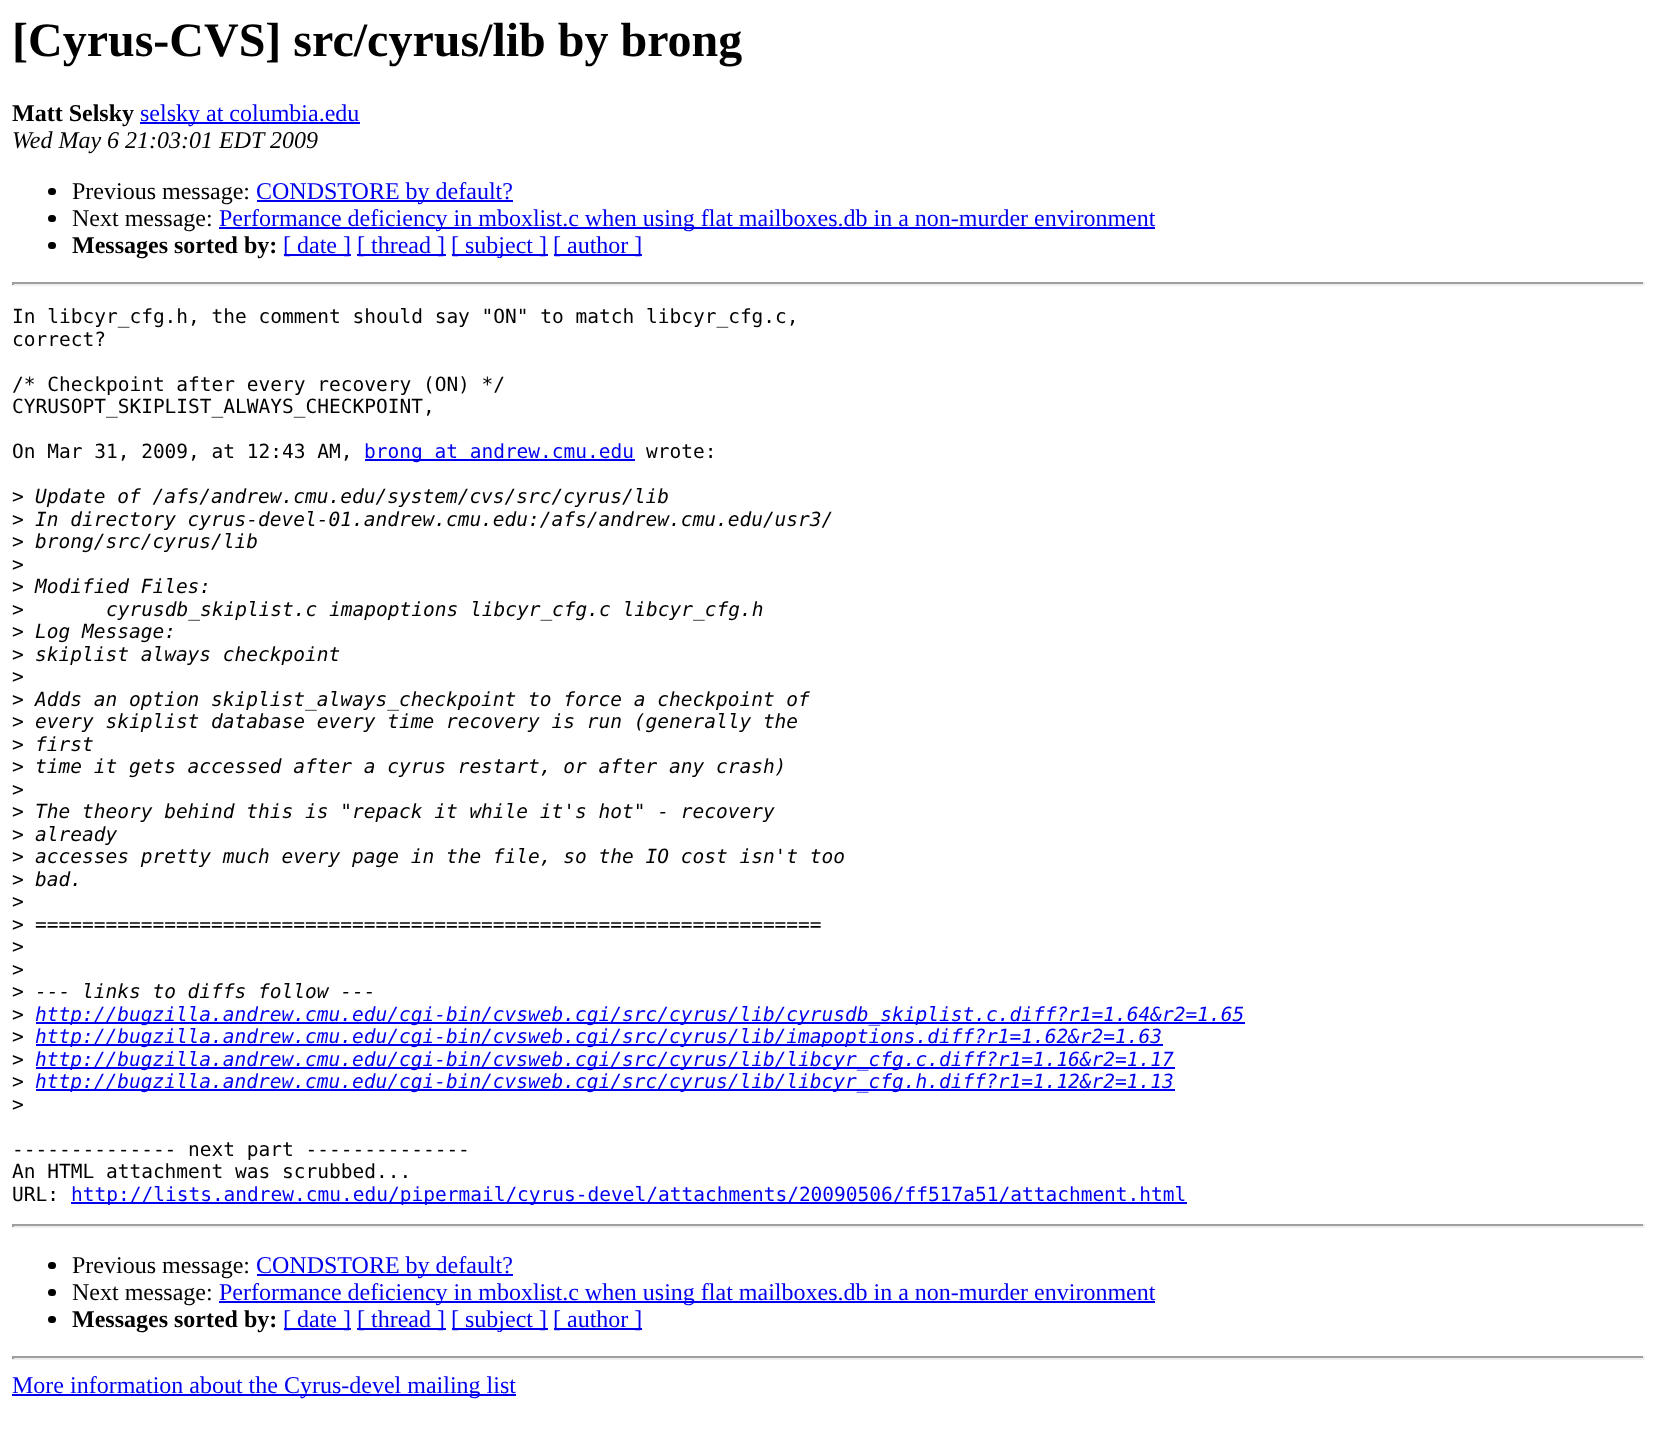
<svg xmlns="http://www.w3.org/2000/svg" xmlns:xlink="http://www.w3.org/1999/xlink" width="1656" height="1455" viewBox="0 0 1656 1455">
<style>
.cls-1{font:bold 48px Liberation Serif;fill:#000000}
.cls-2{font:bold 24px Liberation Serif;fill:#000000}
.cls-3{font:24px Liberation Serif;fill:#0000ee}
.cls-4{font:italic 24px Liberation Serif;fill:#000000}
.cls-5{font:24px Liberation Serif;fill:#000000}
.cls-6{font:19.5px DejaVu Sans Mono;fill:#000000}
.cls-7{font:19.5px DejaVu Sans Mono;fill:#0000ee}
.cls-8{font:italic 19.5px DejaVu Sans Mono;fill:#000000}
.cls-9{font:italic 19.5px DejaVu Sans Mono;fill:#0000ee}
</style>
<rect width="100%" height="100%" fill="#ffffff"/>
<rect fill="#0000ee" x="140" y="122" width="220" height="2"/>
<rect fill="#000000" x="48" y="188" width="8" height="7" rx="3.5"/>
<rect fill="#0000ee" x="257" y="200" width="256" height="2"/>
<rect fill="#000000" x="48" y="215" width="8" height="7" rx="3.5"/>
<rect fill="#0000ee" x="219" y="227" width="936" height="2"/>
<rect fill="#000000" x="48" y="242" width="8" height="7" rx="3.5"/>
<rect fill="#0000ee" x="284" y="254" width="67" height="2"/>
<rect fill="#0000ee" x="357" y="254" width="89" height="2"/>
<rect fill="#0000ee" x="452" y="254" width="96" height="2"/>
<rect fill="#0000ee" x="554" y="254" width="88" height="2"/>
<rect fill="#9f9f9f" x="12" y="282" width="1632" height="2"/>
<rect fill="#eeeeee" x="1643" y="282" width="2" height="3"/>
<rect fill="#eeeeee" x="12" y="284" width="1632" height="2"/>
<rect fill="#9f9f9f" x="12" y="282" width="2" height="3"/>
<rect fill="#0000ee" x="365" y="459" width="270" height="2"/>
<rect fill="#0000ee" x="36" y="1022" width="1209" height="2"/>
<rect fill="#0000ee" x="36" y="1044" width="1127" height="2"/>
<rect fill="#0000ee" x="36" y="1067" width="1139" height="2"/>
<rect fill="#0000ee" x="36" y="1089" width="1139" height="2"/>
<rect fill="#0000ee" x="71" y="1202" width="1116" height="2"/>
<rect fill="#9f9f9f" x="12" y="1224" width="1632" height="2"/>
<rect fill="#eeeeee" x="1643" y="1224" width="2" height="3"/>
<rect fill="#eeeeee" x="12" y="1226" width="1632" height="2"/>
<rect fill="#9f9f9f" x="12" y="1224" width="2" height="3"/>
<rect fill="#000000" x="48" y="1262" width="8" height="7" rx="3.5"/>
<rect fill="#0000ee" x="257" y="1274" width="256" height="2"/>
<rect fill="#000000" x="48" y="1289" width="8" height="7" rx="3.5"/>
<rect fill="#0000ee" x="219" y="1301" width="936" height="2"/>
<rect fill="#000000" x="48" y="1316" width="8" height="7" rx="3.5"/>
<rect fill="#0000ee" x="284" y="1328" width="67" height="2"/>
<rect fill="#0000ee" x="357" y="1328" width="89" height="2"/>
<rect fill="#0000ee" x="452" y="1328" width="96" height="2"/>
<rect fill="#0000ee" x="554" y="1328" width="88" height="2"/>
<rect fill="#9f9f9f" x="12" y="1356" width="1632" height="2"/>
<rect fill="#eeeeee" x="1643" y="1356" width="2" height="3"/>
<rect fill="#eeeeee" x="12" y="1358" width="1632" height="2"/>
<rect fill="#9f9f9f" x="12" y="1356" width="2" height="3"/>
<rect fill="#0000ee" x="12" y="1394" width="504" height="2"/>
<text class="cls-1" x="12" y="56">[Cyrus-CVS] src/cyrus/lib by brong</text>
<text class="cls-2" x="12" y="121">Matt Selsky</text>
<text class="cls-3" x="140" y="121">selsky at columbia.edu</text>
<text class="cls-4" x="12" y="148">Wed May 6 21:03:01 EDT 2009</text>
<text class="cls-5" x="72" y="199">Previous message:</text>
<text class="cls-3" x="256" y="199">CONDSTORE by default?</text>
<text class="cls-5" x="72" y="226">Next message:</text>
<text class="cls-3" x="219" y="226">Performance deficiency in mboxlist.c when using flat mailboxes.db in a non-murder environment</text>
<text class="cls-2" x="72" y="253">Messages sorted by:</text>
<text class="cls-3" x="283" y="253">[ date ]</text>
<text class="cls-3" x="357" y="253">[ thread ]</text>
<text class="cls-3" x="451" y="253">[ subject ]</text>
<text class="cls-3" x="553" y="253">[ author ]</text>
<text class="cls-6"><tspan x="12" y="323">In libcyr_cfg.h, the comment should say "ON" to match libcyr_cfg.c,</tspan><tspan x="12" y="346">correct?</tspan></text>
<text class="cls-6"><tspan x="12" y="391">/* Checkpoint after every recovery (ON) */</tspan><tspan x="12" y="413">CYRUSOPT_SKIPLIST_ALWAYS_CHECKPOINT,</tspan></text>
<text class="cls-6" x="12" y="458">On Mar 31, 2009, at 12:43 AM,</text>
<text class="cls-7" x="364" y="458">brong at andrew.cmu.edu</text>
<text class="cls-6" x="646" y="458">wrote:</text>
<text class="cls-6" x="12" y="503">&gt;</text>
<text class="cls-8" x="35" y="503">Update of /afs/andrew.cmu.edu/system/cvs/src/cyrus/lib</text>
<text class="cls-6" x="12" y="526">&gt;</text>
<text class="cls-8" x="35" y="526">In directory cyrus-devel-01.andrew.cmu.edu:/afs/andrew.cmu.edu/usr3/</text>
<text class="cls-6" x="12" y="548">&gt;</text>
<text class="cls-8" x="35" y="548">brong/src/cyrus/lib</text>
<text class="cls-6"><tspan x="12" y="571">&gt;</tspan><tspan x="12" y="593">&gt;</tspan></text>
<text class="cls-8" x="35" y="593">Modified Files:</text>
<text class="cls-6" x="12" y="616">&gt;</text>
<text class="cls-8" x="106" y="616">cyrusdb_skiplist.c imapoptions libcyr_cfg.c libcyr_cfg.h</text>
<text class="cls-6" x="12" y="638">&gt;</text>
<text class="cls-8" x="35" y="638">Log Message:</text>
<text class="cls-6" x="12" y="661">&gt;</text>
<text class="cls-8" x="35" y="661">skiplist always checkpoint</text>
<text class="cls-6"><tspan x="12" y="683">&gt;</tspan><tspan x="12" y="706">&gt;</tspan></text>
<text class="cls-8" x="35" y="706">Adds an option skiplist_always_checkpoint to force a checkpoint of</text>
<text class="cls-6" x="12" y="728">&gt;</text>
<text class="cls-8" x="35" y="728">every skiplist database every time recovery is run (generally the</text>
<text class="cls-6" x="12" y="751">&gt;</text>
<text class="cls-8" x="35" y="751">first</text>
<text class="cls-6" x="12" y="773">&gt;</text>
<text class="cls-8" x="35" y="773">time it gets accessed after a cyrus restart, or after any crash)</text>
<text class="cls-6"><tspan x="12" y="796">&gt;</tspan><tspan x="12" y="818">&gt;</tspan></text>
<text class="cls-8" x="35" y="818">The theory behind this is "repack it while it's hot" - recovery</text>
<text class="cls-6" x="12" y="841">&gt;</text>
<text class="cls-8" x="35" y="841">already</text>
<text class="cls-6" x="12" y="863">&gt;</text>
<text class="cls-8" x="35" y="863">accesses pretty much every page in the file, so the IO cost isn't too</text>
<text class="cls-6" x="12" y="886">&gt;</text>
<text class="cls-8" x="35" y="886">bad.</text>
<text class="cls-6"><tspan x="12" y="908">&gt;</tspan><tspan x="12" y="931">&gt;</tspan></text>
<text class="cls-8" x="35" y="931">===================================================================</text>
<text class="cls-6"><tspan x="12" y="953">&gt;</tspan><tspan x="12" y="976">&gt;</tspan><tspan x="12" y="998">&gt;</tspan></text>
<text class="cls-8" x="35" y="998">--- links to diffs follow ---</text>
<text class="cls-6" x="12" y="1021">&gt;</text>
<text class="cls-9" x="35" y="1021">http://bugzilla.andrew.cmu.edu/cgi-bin/cvsweb.cgi/src/cyrus/lib/cyrusdb_skiplist.c.diff?r1=1.64&amp;r2=1.65</text>
<text class="cls-6" x="12" y="1043">&gt;</text>
<text class="cls-9" x="35" y="1043">http://bugzilla.andrew.cmu.edu/cgi-bin/cvsweb.cgi/src/cyrus/lib/imapoptions.diff?r1=1.62&amp;r2=1.63</text>
<text class="cls-6" x="12" y="1066">&gt;</text>
<text class="cls-9" x="35" y="1066">http://bugzilla.andrew.cmu.edu/cgi-bin/cvsweb.cgi/src/cyrus/lib/libcyr_cfg.c.diff?r1=1.16&amp;r2=1.17</text>
<text class="cls-6" x="12" y="1088">&gt;</text>
<text class="cls-9" x="35" y="1088">http://bugzilla.andrew.cmu.edu/cgi-bin/cvsweb.cgi/src/cyrus/lib/libcyr_cfg.h.diff?r1=1.12&amp;r2=1.13</text>
<text class="cls-6" x="12" y="1111">&gt;</text>
<text class="cls-6"><tspan x="12" y="1156">-------------- next part --------------</tspan><tspan x="12" y="1178">An HTML attachment was scrubbed...</tspan><tspan x="12" y="1201">URL:</tspan></text>
<text class="cls-7" x="71" y="1201">http://lists.andrew.cmu.edu/pipermail/cyrus-devel/attachments/20090506/ff517a51/attachment.html</text>
<text class="cls-5" x="72" y="1273">Previous message:</text>
<text class="cls-3" x="256" y="1273">CONDSTORE by default?</text>
<text class="cls-5" x="72" y="1300">Next message:</text>
<text class="cls-3" x="219" y="1300">Performance deficiency in mboxlist.c when using flat mailboxes.db in a non-murder environment</text>
<text class="cls-2" x="72" y="1327">Messages sorted by:</text>
<text class="cls-3" x="283" y="1327">[ date ]</text>
<text class="cls-3" x="357" y="1327">[ thread ]</text>
<text class="cls-3" x="451" y="1327">[ subject ]</text>
<text class="cls-3" x="553" y="1327">[ author ]</text>
<text class="cls-3" x="12" y="1393">More information about the Cyrus-devel mailing list</text>
</svg>
